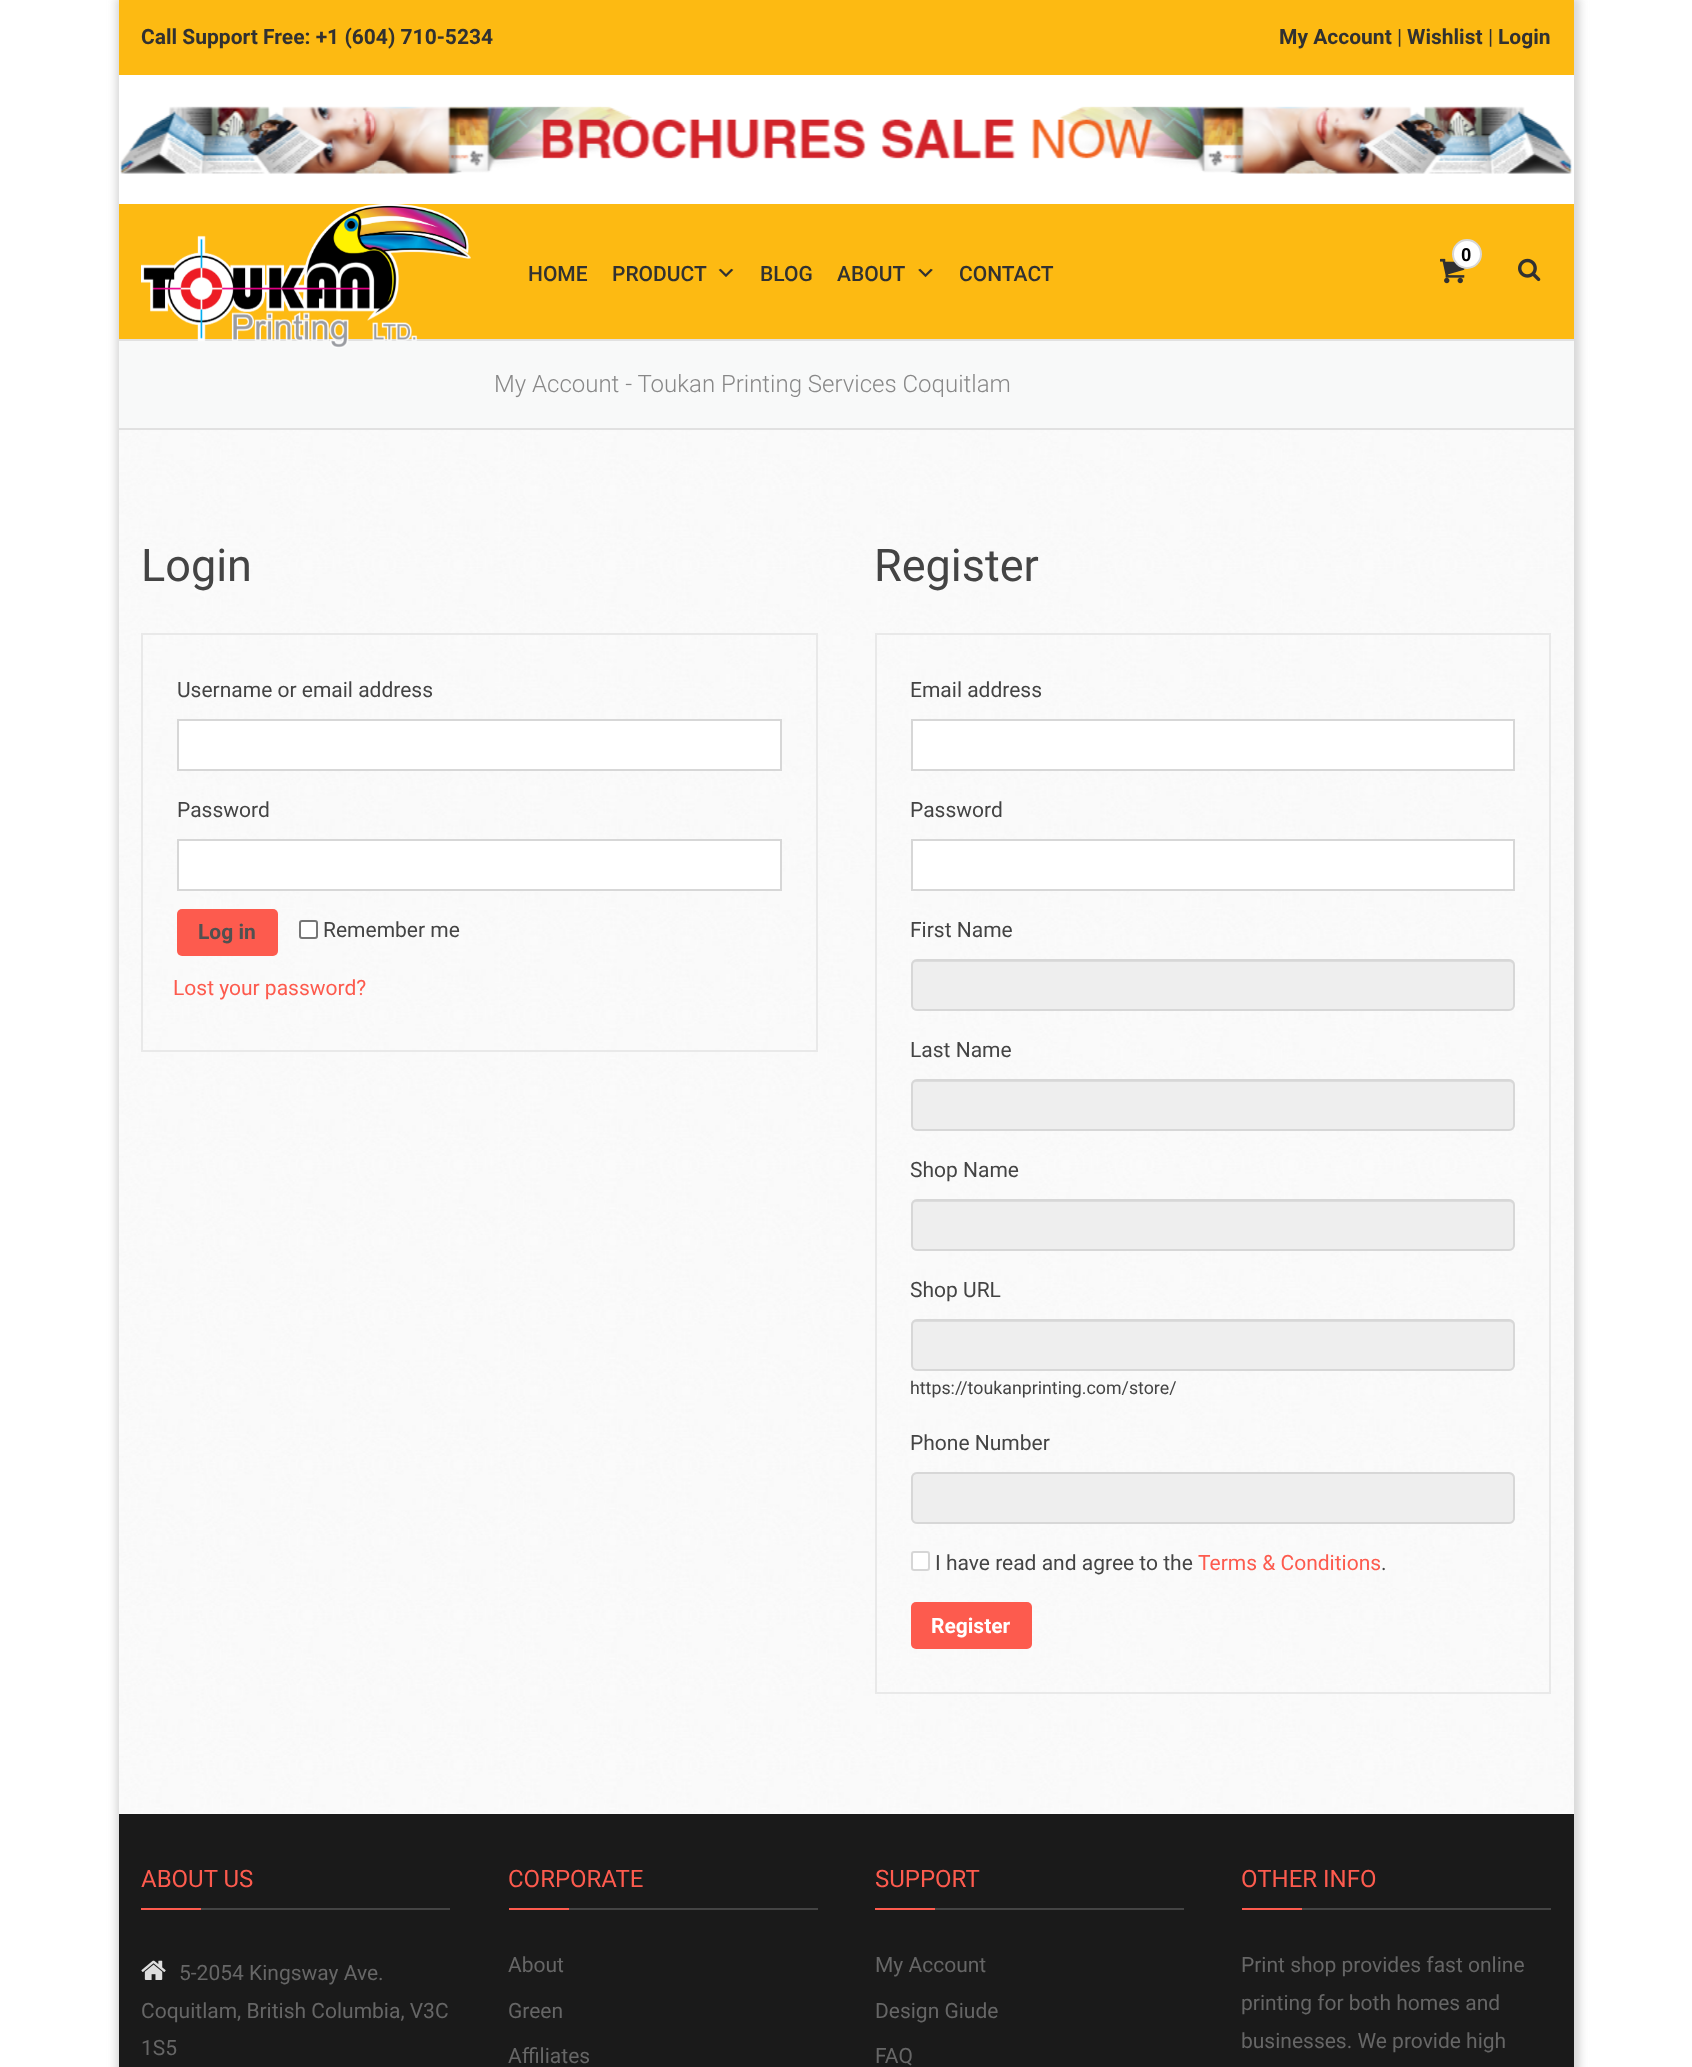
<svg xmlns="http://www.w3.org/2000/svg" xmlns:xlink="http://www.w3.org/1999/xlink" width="1692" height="2067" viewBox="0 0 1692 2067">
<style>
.cls-1{font:bold 21px Roboto;fill:#313131}
.cls-2{font:21px Roboto;fill:#313131}
.cls-3{font:bold 18px Roboto;letter-spacing:2px;fill:#000000}
.cls-4{font:500 21px Roboto;fill:#313131}
.cls-5{font:300 24px Roboto;fill:#888888}
.cls-6{font:45px Roboto;fill:#444444}
.cls-7{font:21px Roboto;fill:#444444}
.cls-8{font:bold 21px Roboto;fill:#515151}
.cls-9{font:21px Roboto;fill:#fd5b4e}
.cls-10{font:17.8px Roboto;fill:#444444}
.cls-11{font:bold 21px Roboto;fill:#ffffff}
.cls-12{font:24px Roboto;fill:#fd5b4e}
.cls-13{font:21px Roboto;fill:#666666}
</style>
<rect width="100%" height="100%" fill="#ffffff"/>
<rect fill="#d7d7d7" filter="blur(4px)" x="116" y="-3" width="1464" height="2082"/>
<rect fill="#ffffff" x="119" y="75" width="1455" height="1739"/>
<rect fill="#fdba12" x="119" y="0" width="1455" height="75"/>
<image xlink:href="image0.png" x="120" y="106" width="1452" height="68"/>
<rect fill="#fdba12" x="119" y="204" width="1455" height="135"/>
<rect fill="#f8f9f9" x="119" y="341" width="1455" height="87"/>
<rect fill="#e1e1e1" x="119" y="339" width="1455" height="2"/>
<image xlink:href="image1.png" x="141" y="204" width="330" height="144"/>
<image xlink:href="image2.png" x="1440" y="258" width="25" height="26"/>
<circle fill="#ffffff" stroke="#d7d7d7" stroke-width="2" cx="1467" cy="254" r="14"/>
<image xlink:href="image3.png" x="1518" y="258" width="23" height="24"/>
<image xlink:href="image4.png" x="718" y="268" width="16" height="9"/>
<image xlink:href="image5.png" x="918" y="268" width="15" height="10"/>
<image xlink:href="image6.png" x="119" y="430" width="1455" height="1384"/>
<rect fill="#e1e1e1" x="119" y="428" width="1455" height="2"/>
<rect fill="none" stroke="#e9e9e9" stroke-width="2" x="142" y="634" width="675" height="417"/>
<rect fill="#ffffff" stroke="#d7d7d7" stroke-width="2" x="178" y="720" width="603" height="50"/>
<rect fill="#ffffff" stroke="#d7d7d7" stroke-width="2" x="178" y="840" width="603" height="50"/>
<rect fill="#fd5b4e" x="177" y="909" width="101" height="47" rx="5"/>
<rect fill="#ffffff" stroke="#767676" stroke-width="2" x="300" y="921" width="17" height="17" rx="2"/>
<rect fill="none" stroke="#e9e9e9" stroke-width="2" x="876" y="634" width="674" height="1059"/>
<rect fill="#ffffff" stroke="#d7d7d7" stroke-width="2" x="912" y="720" width="602" height="50"/>
<rect fill="#ffffff" stroke="#d7d7d7" stroke-width="2" x="912" y="840" width="602" height="50"/>
<rect fill="#eeeeee" x="911" y="959" width="604" height="52" rx="6"/>
<path fill="#dcdcdc" d="M916 962H1509C1511 962 1514 964 1514 966V965C1514 962 1512 960 1509 960H917C914 960 912 962 912 965V966C912 964 914 962 916 962Z"/>
<rect fill="none" stroke="#d7d7d7" stroke-width="2" x="912" y="960" width="602" height="50" rx="5"/>
<rect fill="#eeeeee" x="911" y="1079" width="604" height="52" rx="6"/>
<path fill="#dcdcdc" d="M916 1082H1509C1511 1082 1514 1084 1514 1086V1085C1514 1082 1512 1080 1509 1080H917C914 1080 912 1082 912 1085V1086C912 1084 914 1082 916 1082Z"/>
<rect fill="none" stroke="#d7d7d7" stroke-width="2" x="912" y="1080" width="602" height="50" rx="5"/>
<rect fill="#eeeeee" x="911" y="1199" width="604" height="52" rx="6"/>
<path fill="#dcdcdc" d="M916 1202H1509C1511 1202 1514 1204 1514 1206V1205C1514 1202 1512 1200 1509 1200H917C914 1200 912 1202 912 1205V1206C912 1204 914 1202 916 1202Z"/>
<rect fill="none" stroke="#d7d7d7" stroke-width="2" x="912" y="1200" width="602" height="50" rx="5"/>
<rect fill="#eeeeee" x="911" y="1319" width="604" height="52" rx="6"/>
<path fill="#dcdcdc" d="M916 1322H1509C1511 1322 1514 1324 1514 1326V1325C1514 1322 1512 1320 1509 1320H917C914 1320 912 1322 912 1325V1326C912 1324 914 1322 916 1322Z"/>
<rect fill="none" stroke="#d7d7d7" stroke-width="2" x="912" y="1320" width="602" height="50" rx="5"/>
<rect fill="#eeeeee" x="911" y="1472" width="604" height="52" rx="6"/>
<path fill="#dcdcdc" d="M916 1474H1509C1511 1474 1514 1477 1514 1479V1478C1514 1475 1512 1473 1509 1473H917C914 1473 912 1475 912 1478V1479C912 1477 914 1474 916 1474Z"/>
<rect fill="none" stroke="#d7d7d7" stroke-width="2" x="912" y="1473" width="602" height="50" rx="5"/>
<rect fill="#ffffff" x="911" y="1551" width="19" height="20" rx="3"/>
<rect fill="none" stroke="#767676" stroke-opacity="0.3" stroke-width="2" x="912" y="1552" width="17" height="18" rx="2"/>
<rect fill="#fd5b4e" x="911" y="1602" width="121" height="47" rx="5"/>
<rect fill="#1a1a1a" x="119" y="1814" width="1455" height="253"/>
<rect fill="#444444" x="201" y="1908" width="249" height="2"/>
<rect fill="#fd5b4e" x="141" y="1908" width="60" height="2"/>
<image xlink:href="image7.png" x="141" y="1960" width="25" height="20"/>
<rect fill="#444444" x="569" y="1908" width="249" height="2"/>
<rect fill="#fd5b4e" x="509" y="1908" width="60" height="2"/>
<rect fill="#444444" x="935" y="1908" width="249" height="2"/>
<rect fill="#fd5b4e" x="875" y="1908" width="60" height="2"/>
<rect fill="#444444" x="1302" y="1908" width="249" height="2"/>
<rect fill="#fd5b4e" x="1242" y="1908" width="60" height="2"/>
<text class="cls-1" x="141" y="44">Call Support Free: +1 (604) 710-5234</text>
<text class="cls-1" x="1279" y="44">My Account</text>
<text class="cls-2" x="1397" y="44">|</text>
<text class="cls-1" x="1407" y="44">Wishlist</text>
<text class="cls-2" x="1488" y="44">|</text>
<text class="cls-1" x="1498" y="44">Login</text>
<text class="cls-3" x="1461" y="261">0</text>
<text class="cls-4" x="528" y="281">HOME</text>
<text class="cls-4" x="612" y="281">PRODUCT</text>
<text class="cls-4" x="760" y="281">BLOG</text>
<text class="cls-4" x="837" y="281">ABOUT</text>
<text class="cls-4" x="959" y="281">CONTACT</text>
<text class="cls-5" x="494" y="392">My Account - Toukan Printing Services Coquitlam</text>
<text class="cls-6" x="141" y="581">Login</text>
<text class="cls-7" x="177" y="697">Username or email address</text>
<text class="cls-7" x="177" y="817">Password</text>
<text class="cls-8" x="198" y="939">Log in</text>
<text class="cls-7" x="323" y="937">Remember me</text>
<text class="cls-9" x="173" y="995">Lost your password?</text>
<text class="cls-6" x="874" y="581">Register</text>
<text class="cls-7" x="910" y="697">Email address</text>
<text class="cls-7" x="910" y="817">Password</text>
<text class="cls-7" x="910" y="937">First Name</text>
<text class="cls-7" x="910" y="1057">Last Name</text>
<text class="cls-7" x="910" y="1177">Shop Name</text>
<text class="cls-7" x="910" y="1297">Shop URL</text>
<text class="cls-10" x="910" y="1394">https://toukanprinting.com/store/</text>
<text class="cls-7" x="910" y="1450">Phone Number</text>
<text class="cls-7" x="935" y="1570">I have read and agree to the</text>
<text class="cls-9" x="1198" y="1570">Terms &amp; Conditions</text>
<text class="cls-7" x="1381" y="1570">.</text>
<text class="cls-11" x="931" y="1633">Register</text>
<text class="cls-12" x="141" y="1887">ABOUT US</text>
<text class="cls-13" x="179" y="1980">5-2054 Kingsway Ave.</text>
<text class="cls-13"><tspan x="141" y="2018">Coquitlam, British Columbia, V3C</tspan><tspan x="141" y="2055">1S5</tspan></text>
<text class="cls-12" x="508" y="1887">CORPORATE</text>
<text class="cls-13" x="508" y="1972">About</text>
<text class="cls-13" x="508" y="2018">Green</text>
<text class="cls-13" x="508" y="2063">Affiliates</text>
<text class="cls-12" x="875" y="1887">SUPPORT</text>
<text class="cls-13" x="875" y="1972">My Account</text>
<text class="cls-13" x="875" y="2018">Design Giude</text>
<text class="cls-13" x="875" y="2063">FAQ</text>
<text class="cls-12" x="1241" y="1887">OTHER INFO</text>
<text class="cls-13"><tspan x="1241" y="1972">Print shop provides fast online</tspan><tspan x="1241" y="2010">printing for both homes and</tspan><tspan x="1241" y="2048">businesses. We provide high</tspan></text>
</svg>
